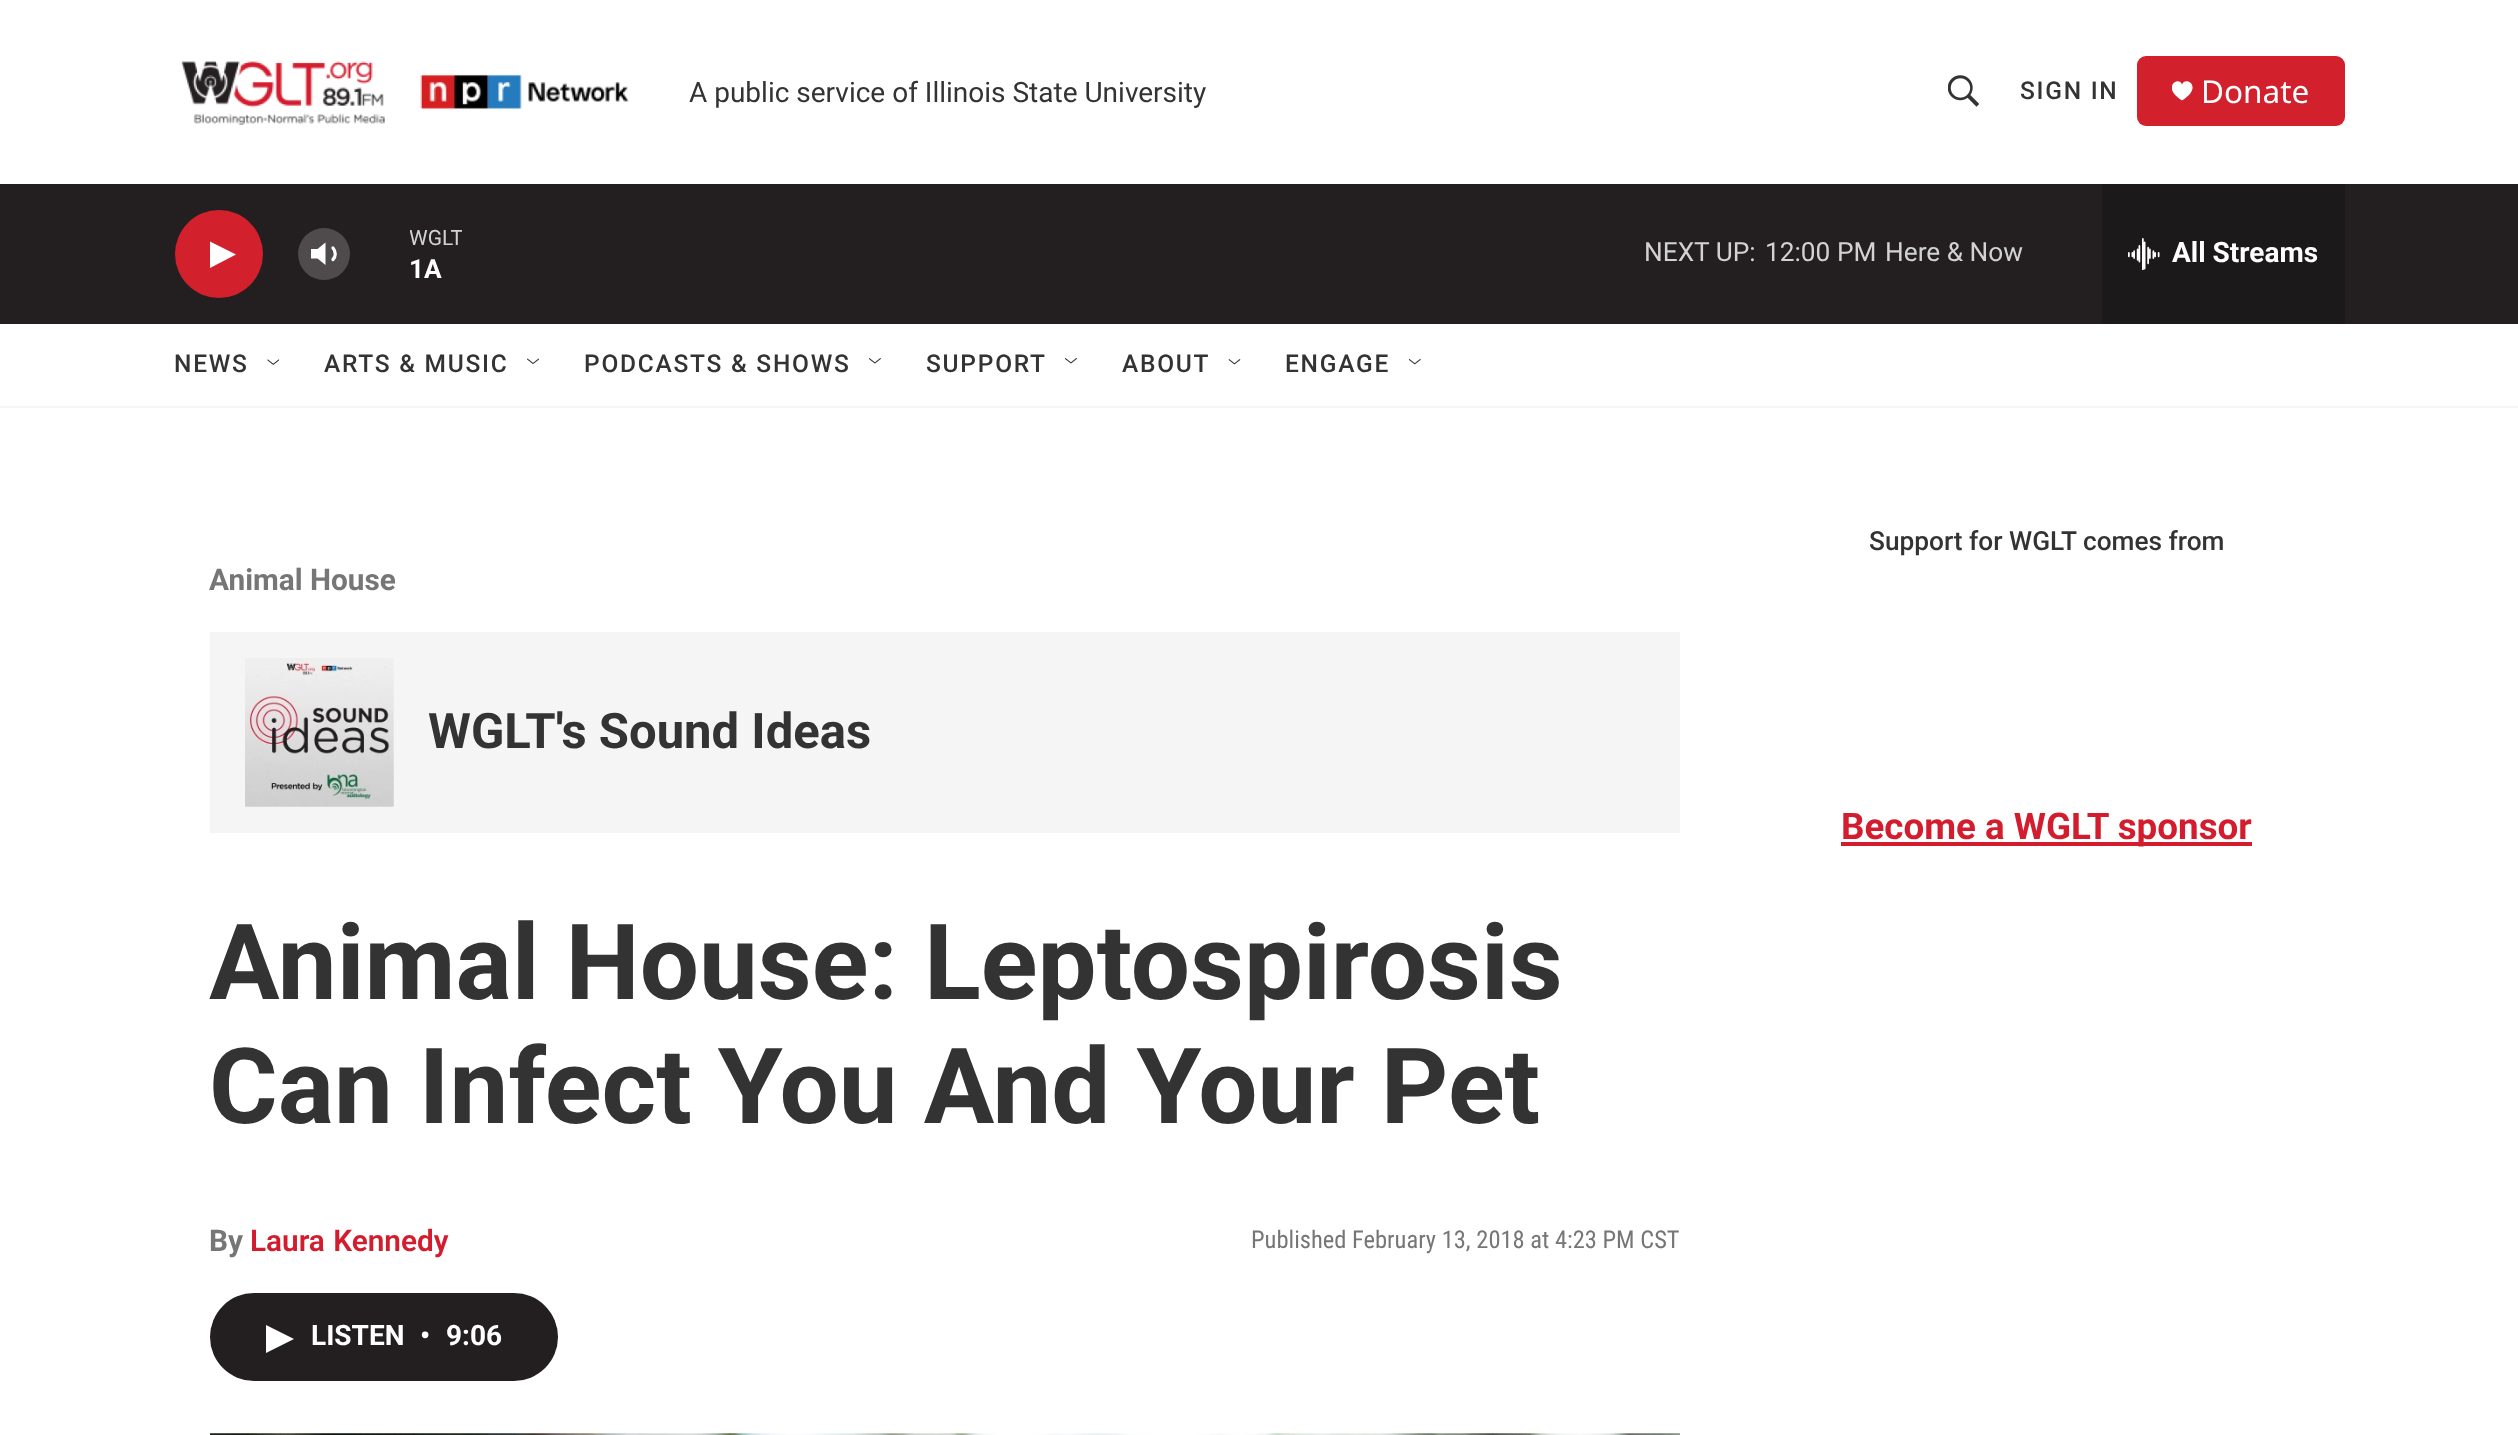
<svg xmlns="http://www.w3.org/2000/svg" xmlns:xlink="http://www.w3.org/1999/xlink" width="2518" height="1435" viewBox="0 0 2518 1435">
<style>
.cls-1{font:28px Roboto;fill:#333333}
.cls-2{font:500 24.5px Roboto;letter-spacing:1.75px;fill:#333333}
.cls-3{font:31.5px Noto Sans;fill:#ffffff}
.cls-4{font:21px Roboto;fill:#d3d2d2}
.cls-5{font:bold 26.25px 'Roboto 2';fill:#ffffff}
.cls-6{font:26.25px Roboto;fill:#d3d2d2}
.cls-7{font:bold 28px 'Roboto 2';fill:#ffffff}
.cls-8{font:bold 29.75px Roboto;fill:#767676}
.cls-9{font:bold 49px Roboto;fill:#333333}
.cls-10{font:bold 105px Roboto;fill:#333333}
.cls-11{font:600 29.75px Roboto;fill:#d31d2e}
.cls-12{font:24.5px Roboto Condensed;fill:#767676}
.cls-13{font:500 26.25px Roboto;fill:#333333}
.cls-14{font:bold 36.75px 'Roboto 2';fill:#d31d2e}
</style>
<defs>
<clipPath id="clip1"><rect x="2172" y="81" width="21" height="21"/></clipPath>
<clipPath id="clip2"><rect x="410" y="222" width="52" height="32"/></clipPath>
</defs>
<rect width="100%" height="100%" fill="#ffffff"/>
<rect fill="#f5f5f5" x="0" y="406" width="2518" height="2"/>
<image xlink:href="image0.png" x="181" y="61" width="448" height="65"/>
<image xlink:href="image1.png" x="1948" y="75" width="31" height="32"/>
<rect fill="#d2202c" x="2137" y="56" width="208" height="70" rx="9"/>
<g clip-path="url(#clip1)">
<path fill="#ffffff" d="M2182 84.5C2179 75.5 2160.5 87 2182 100.5C2204 87 2185.5 75.5 2182 84.5Z"/>
</g>
<rect fill="#231f20" x="0" y="184" width="2518" height="140"/>
<circle fill="#d2202d" cx="219" cy="254" r="44"/>
<path fill="#ffffff" d="M210 241.5L236 254.5L210 268Z"/>
<path fill="#ffffff" d="M325.5 242.5L317.5 249H311V258.5H317.5L325.5 265Z"/>
<path fill="none" stroke="#ffffff" stroke-width="3.2" stroke-linecap="round" stroke-linejoin="round" d="M333 248C336 251.5 336 256.5 333 259.5"/>
<circle fill="#ffffff" fill-opacity="0.2" cx="324" cy="254" r="26"/>
<rect fill="#1c191a" x="2102" y="184" width="243" height="140"/>
<image xlink:href="image2.png" x="2128" y="238" width="32" height="32"/>
<image xlink:href="image3.png" x="267" y="359" width="13" height="6"/>
<image xlink:href="image4.png" x="527" y="358" width="12" height="6"/>
<image xlink:href="image5.png" x="869" y="358" width="12" height="6"/>
<image xlink:href="image6.png" x="1065" y="358" width="12" height="6"/>
<image xlink:href="image7.png" x="1228" y="359" width="13" height="6"/>
<image xlink:href="image8.png" x="1408" y="358" width="13" height="7"/>
<rect fill="#f5f5f5" x="210" y="632" width="1470" height="201"/>
<image xlink:href="image9.png" x="245" y="658" width="149" height="149"/>
<rect fill="#231f20" x="210" y="1293" width="348" height="88" rx="44"/>
<path fill="#ffffff" d="M266 1325L294 1339L266 1353Z"/>
<image xlink:href="image10.png" x="210" y="1433" width="1470" height="2"/>
<rect fill="#d31d2e" x="1841" y="842" width="411" height="4"/>
<text class="cls-1" x="689" y="102">A public service of Illinois State University</text>
<text class="cls-2" x="2020" y="99">SIGN IN</text>
<text class="cls-3" x="2201" y="103">Donate</text>
<g clip-path="url(#clip2)">
<text class="cls-4" x="409" y="245">WGLT</text>
</g>
<text class="cls-5" x="409" y="278">1A</text>
<text class="cls-6" x="1644" y="261">NEXT UP:</text>
<text class="cls-6" x="1765" y="261">12:00 PM</text>
<text class="cls-6" x="1885" y="261">Here &amp; Now</text>
<text class="cls-7" x="2172" y="262">All Streams</text>
<text class="cls-2" x="174" y="372">NEWS</text>
<text class="cls-2" x="324" y="372">ARTS &amp; MUSIC</text>
<text class="cls-2" x="584" y="372">PODCASTS &amp; SHOWS</text>
<text class="cls-2" x="926" y="372">SUPPORT</text>
<text class="cls-2" x="1122" y="372">ABOUT</text>
<text class="cls-2" x="1285" y="372">ENGAGE</text>
<text class="cls-8" x="209" y="590">Animal House</text>
<text class="cls-9" x="428" y="748">WGLT's Sound Ideas</text>
<text class="cls-10"><tspan x="209" y="999">Animal House: Leptospirosis</tspan><tspan x="209" y="1123">Can Infect You And Your Pet</tspan></text>
<text class="cls-8" x="209" y="1251">By</text>
<text class="cls-11" x="250" y="1251" word-spacing="1">Laura Kennedy</text>
<text class="cls-12" x="1251" y="1248">Published February 13, 2018 at 4:23 PM CST</text>
<text class="cls-7" x="311" y="1345">LISTEN</text>
<text class="cls-7" x="420" y="1345">•</text>
<text class="cls-7" x="446" y="1345">9:06</text>
<text class="cls-13" x="1869" y="550">Support for WGLT comes from</text>
<text class="cls-14" x="1841" y="839">Become a WGLT sponsor</text>
</svg>
